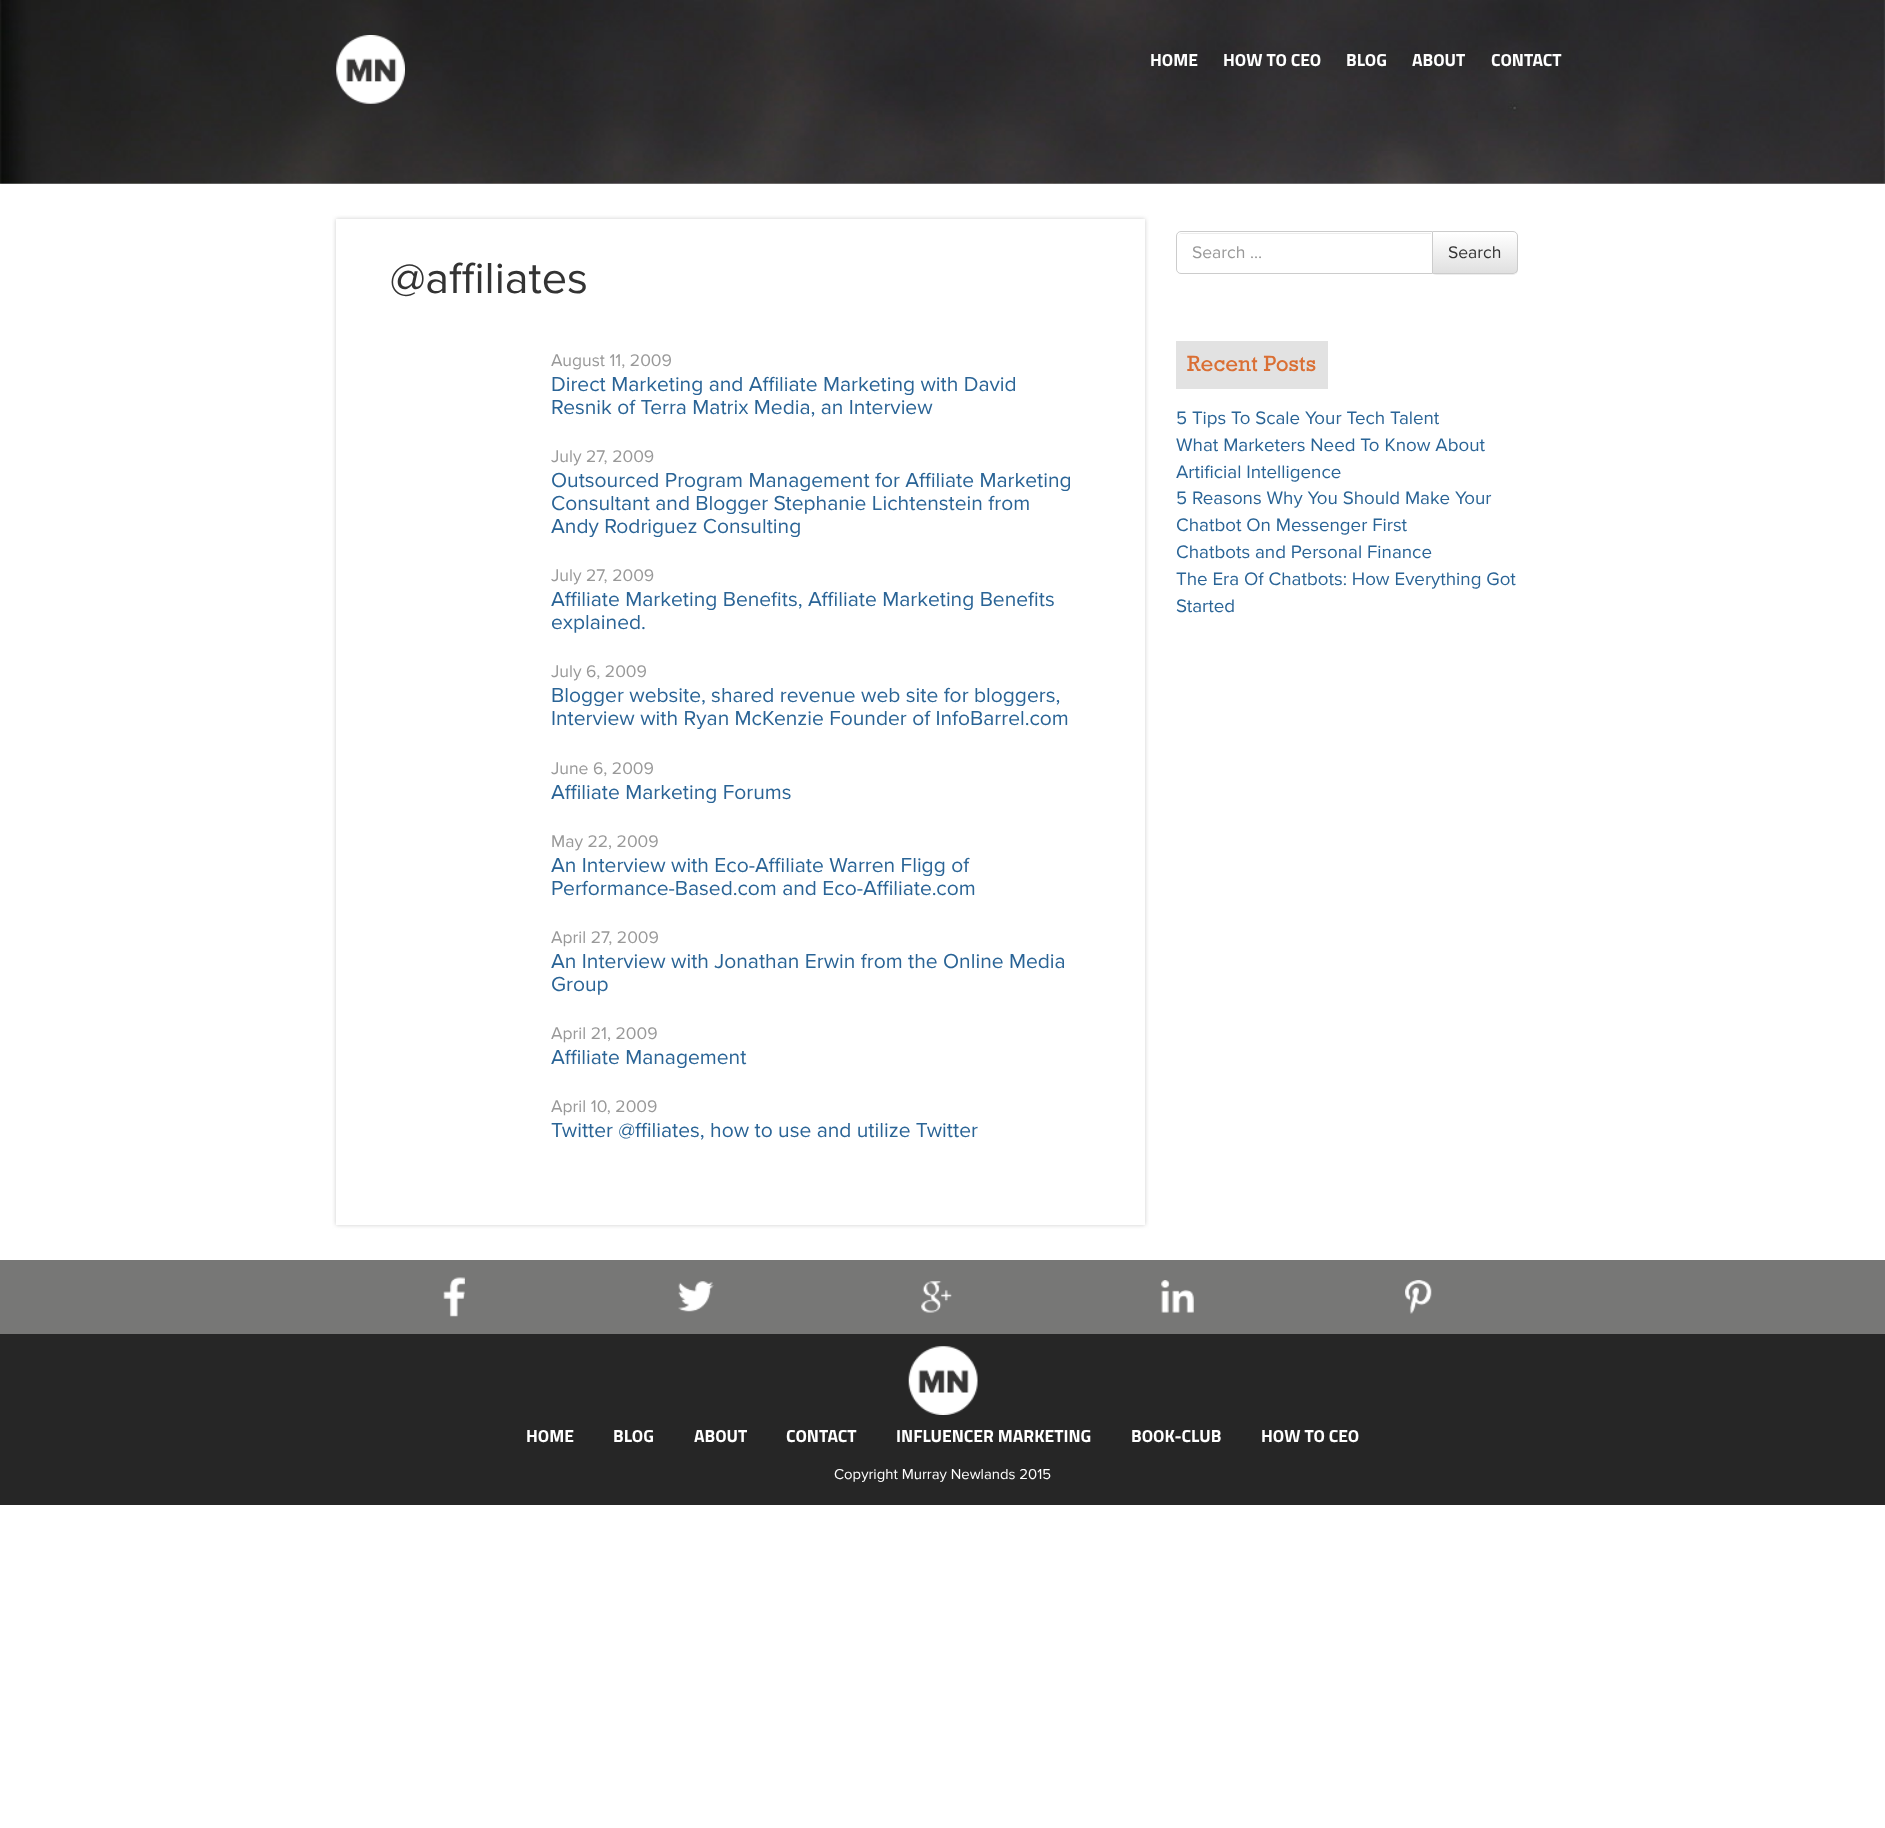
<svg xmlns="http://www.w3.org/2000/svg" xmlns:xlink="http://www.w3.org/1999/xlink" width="1885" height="1828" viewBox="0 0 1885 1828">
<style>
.cls-1{font:bold 17.5px Titillium Web;fill:#ffffff}
.cls-2{font:45px Proxima Nova;fill:#333333}
.cls-3{font:17.5px Proxima Nova;fill:#999999}
.cls-4{font:21px Proxima Nova;fill:#2a6496}
.cls-5{font:17.5px Proxima Nova;fill:#333333}
.cls-6{font:22.5px Rockwell;fill:#da6f34}
.cls-7{font:18.75px Proxima Nova;fill:#2a6496}
.cls-8{font:14.9px Proxima Nova;fill:#ffffff}
</style>
<defs>
<clipPath id="clip1"><path d="M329 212H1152V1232H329ZM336 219H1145V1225H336Z" clip-rule="evenodd"/></clipPath>
<clipPath id="clip2"><path d="M1431 231H1513C1516 231 1518 233 1518 236V269C1518 272 1516 274 1513 274H1431Z"/></clipPath>
<linearGradient id="g1" gradientUnits="userSpaceOnUse" x1="1474" y1="233" x2="1474" y2="273"><stop offset="0" stop-color="#ffffff"/><stop offset="1" stop-color="#e0e0e0"/></linearGradient>
</defs>
<rect width="100%" height="100%" fill="#ffffff"/>
<image xlink:href="image0.png" x="0" y="0" width="1885" height="184"/>
<image xlink:href="image1.png" x="336" y="35" width="69" height="69"/>
<g clip-path="url(#clip1)">
<rect fill="#cccccc" filter="blur(2px)" x="336" y="219" width="809" height="1006"/>
</g>
<rect fill="#000000" fill-opacity="0.07" filter="blur(0.5px)" x="1431" y="233" width="87" height="42" rx="5"/>
<path fill="#ffffff" d="M1431 231H1513C1516 231 1518 233 1518 236V269C1518 272 1516 274 1513 274H1431Z"/>
<g clip-path="url(#clip2)">
<rect fill="url(#g1)" x="1433" y="233" width="85" height="40"/>
</g>
<path fill="none" stroke="#cccccc" d="M1431.5 231.5H1513C1515.5 231.5 1517.5 233.5 1517.5 236V269C1517.5 271.5 1515.5 273.5 1513 273.5H1431.5Z"/>
<path fill="#ffffff" d="M1181 231H1433V274H1181C1178 274 1176 272 1176 269V236C1176 233 1178 231 1181 231Z"/>
<path fill="#ececec" d="M1181 234H1431V233H1182C1180 233 1178 235 1178 237V238C1178 235 1179 234 1181 234Z"/>
<path fill="none" stroke="#cccccc" d="M1181 231.5H1432.5V273.5H1181C1178.5 273.5 1176.5 271.5 1176.5 269V236C1176.5 233.5 1178.5 231.5 1181 231.5Z"/>
<rect fill="#e2e2e2" x="1176" y="341" width="152" height="48"/>
<rect fill="#777776" x="0" y="1260" width="1885" height="74"/>
<image xlink:href="image2.png" x="443" y="1277" width="22" height="40"/>
<image xlink:href="image3.png" x="678" y="1281" width="36" height="31"/>
<image xlink:href="image4.png" x="921" y="1281" width="31" height="32"/>
<image xlink:href="image5.png" x="1161" y="1280" width="33" height="33"/>
<image xlink:href="image6.png" x="1405" y="1280" width="27" height="34"/>
<rect fill="#262626" x="0" y="1334" width="1885" height="171"/>
<image xlink:href="image7.png" x="908" y="1346" width="70" height="69"/>
<text class="cls-1" x="1150" y="66">HOME</text>
<text class="cls-1" x="1223" y="66">HOW TO CEO</text>
<text class="cls-1" x="1346" y="66">BLOG</text>
<text class="cls-1" x="1412" y="66">ABOUT</text>
<text class="cls-1" x="1491" y="66">CONTACT</text>
<text class="cls-2" x="390" y="293">@affiliates</text>
<text class="cls-3" x="551" y="366">August 11, 2009</text>
<text class="cls-4"><tspan x="551" y="391">Direct Marketing and Affiliate Marketing with David</tspan><tspan x="551" y="414">Resnik of Terra Matrix Media, an Interview</tspan></text>
<text class="cls-3" x="551" y="462">July 27, 2009</text>
<text class="cls-4"><tspan x="551" y="487">Outsourced Program Management for Affiliate Marketing</tspan><tspan x="551" y="510">Consultant and Blogger Stephanie Lichtenstein from</tspan><tspan x="551" y="533">Andy Rodriguez Consulting</tspan></text>
<text class="cls-3" x="551" y="581">July 27, 2009</text>
<text class="cls-4"><tspan x="551" y="606">Affiliate Marketing Benefits, Affiliate Marketing Benefits</tspan><tspan x="551" y="629">explained.</tspan></text>
<text class="cls-3" x="551" y="677">July 6, 2009</text>
<text class="cls-4"><tspan x="551" y="702">Blogger website, shared revenue web site for bloggers,</tspan><tspan x="551" y="725">Interview with Ryan McKenzie Founder of InfoBarrel.com</tspan></text>
<text class="cls-3" x="551" y="774">June 6, 2009</text>
<text class="cls-4" x="551" y="799">Affiliate Marketing Forums</text>
<text class="cls-3" x="551" y="847">May 22, 2009</text>
<text class="cls-4"><tspan x="551" y="872">An Interview with Eco-Affiliate Warren Fligg of</tspan><tspan x="551" y="895">Performance-Based.com and Eco-Affiliate.com</tspan></text>
<text class="cls-3" x="551" y="943">April 27, 2009</text>
<text class="cls-4"><tspan x="551" y="968">An Interview with Jonathan Erwin from the Online Media</tspan><tspan x="551" y="991">Group</tspan></text>
<text class="cls-3" x="551" y="1039">April 21, 2009</text>
<text class="cls-4" x="551" y="1064">Affiliate Management</text>
<text class="cls-3" x="551" y="1112">April 10, 2009</text>
<text class="cls-4" x="551" y="1137">Twitter @ffiliates, how to use and utilize Twitter</text>
<text class="cls-3" x="1192" y="258">Search …</text>
<text class="cls-5" x="1448" y="258">Search</text>
<text class="cls-6" x="1187" y="371">Recent Posts</text>
<text class="cls-7"><tspan x="1176" y="424">5 Tips To Scale Your Tech Talent</tspan><tspan x="1176" y="451">What Marketers Need To Know About</tspan><tspan x="1176" y="478">Artificial Intelligence</tspan><tspan x="1176" y="504">5 Reasons Why You Should Make Your</tspan><tspan x="1176" y="531">Chatbot On Messenger First</tspan><tspan x="1176" y="558">Chatbots and Personal Finance</tspan><tspan x="1176" y="585">The Era Of Chatbots: How Everything Got</tspan><tspan x="1176" y="612">Started</tspan></text>
<text class="cls-1" x="526" y="1442">HOME</text>
<text class="cls-1" x="613" y="1442">BLOG</text>
<text class="cls-1" x="694" y="1442">ABOUT</text>
<text class="cls-1" x="786" y="1442">CONTACT</text>
<text class="cls-1" x="896" y="1442">INFLUENCER MARKETING</text>
<text class="cls-1" x="1131" y="1442">BOOK-CLUB</text>
<text class="cls-1" x="1261" y="1442">HOW TO CEO</text>
<text class="cls-8" x="834" y="1479">Copyright Murray Newlands 2015</text>
</svg>
